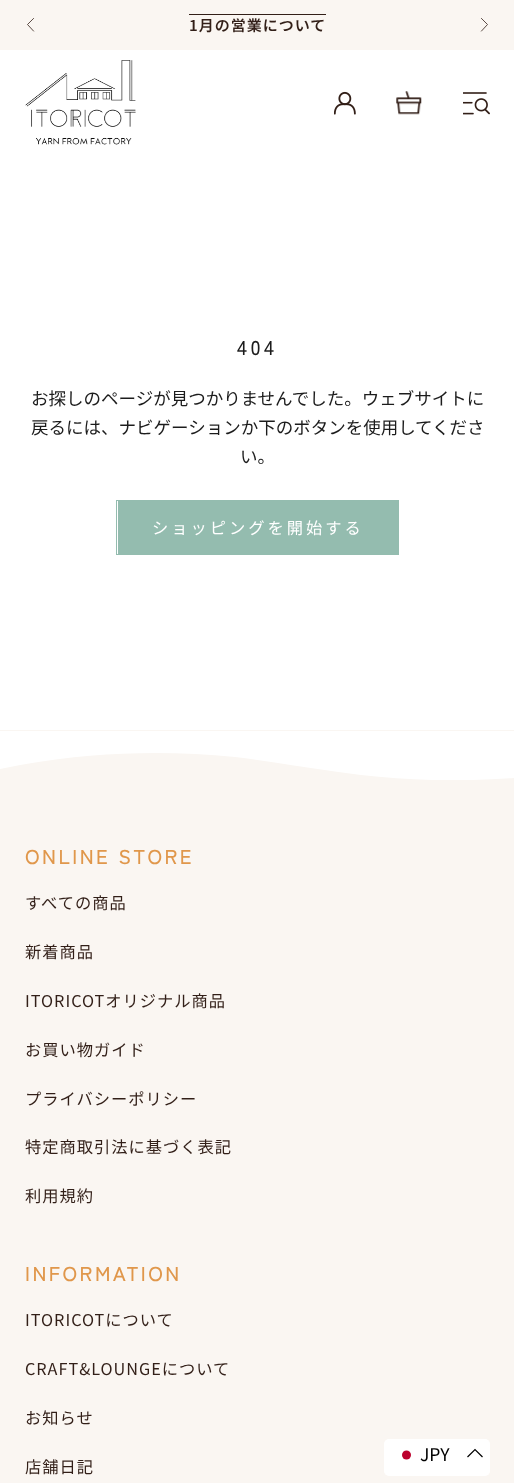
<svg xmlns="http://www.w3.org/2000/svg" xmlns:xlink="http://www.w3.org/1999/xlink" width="514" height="1483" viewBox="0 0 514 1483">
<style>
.cls-1{font:600 15px Noto Sans JP;letter-spacing:1px;fill:#321f18}
.cls-2{font:500 20px Zen Kaku Gothic New;letter-spacing:3.5px;fill:#1c1c1c}
.cls-3{font:17.5px Noto Sans JP;fill:#1c1c1c}
.cls-4{font:16.25px Noto Sans JP;letter-spacing:3px;fill:#ffffff}
.cls-5{font:500 20px Zen Kaku Gothic New;letter-spacing:2.5px;fill:#e0974b}
.cls-6{font:16.25px Noto Sans JP;letter-spacing:1px;fill:#321f18}
.cls-7{font:17.5px Noto Sans JP;fill:#000000}
</style>
<defs>
<clipPath id="clip1"><rect x="0" y="730" width="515" height="50"/></clipPath>
</defs>
<rect width="100%" height="100%" fill="#ffffff"/>
<rect fill="#faf6f2" x="0" y="0" width="514" height="50"/>
<path fill="none" stroke="#321f18" stroke-width="0.8" stroke-linecap="square" d="M33.5 18.5L27.5 24.5L33.5 31"/>
<rect fill="#321f18" x="189" y="14" width="137" height="1"/>
<path fill="none" stroke="#321f18" stroke-width="0.8" stroke-linecap="square" d="M481.5 31L487.5 24.5L481.5 18.5"/>
<image xlink:href="image0.png" x="25" y="60" width="111" height="85"/>
<image xlink:href="image1.png" x="334" y="91" width="22" height="24"/>
<image xlink:href="image2.png" x="396" y="91" width="26" height="24"/>
<image xlink:href="image3.png" x="463" y="92" width="27" height="23"/>
<rect fill="#94bcaf" x="118" y="501" width="280" height="53"/>
<rect fill="none" stroke="#94bcaf" x="116.5" y="500.5" width="282" height="54"/>
<rect fill="#faf6f2" x="0" y="730" width="514" height="753"/>
<g clip-path="url(#clip1)">
<path fill="#ffffff" d="M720 742C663 751 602 768 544 775C484 782 421 782 361 775C318 770 277 762 235 757C156 749 75 753 0 769V731H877V741C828 731 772 734 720 742Z"/>
</g>
<rect fill="#ffffff" x="384" y="1439" width="106" height="37" rx="5"/>
<circle fill="#bc002d" cx="406.5" cy="1455" r="4.5"/>
<path fill="none" stroke="#000000" stroke-width="1.2" d="M482.5 1457L475 1449.5L467.5 1457"/>
<text class="cls-1" x="189" y="31">1月の営業について</text>
<text class="cls-2" x="237" y="355">404</text>
<text class="cls-3"><tspan x="31" y="405">お探しのページが見つかりませんでした。ウェブサイトに</tspan><tspan x="31" y="434">戻るには、ナビゲーションか下のボタンを使用してくださ</tspan></text>
<text class="cls-3" x="240" y="463">い。</text>
<text class="cls-4" x="152" y="534">ショッピングを開始する</text>
<text class="cls-5" x="25" y="864">ONLINE STORE</text>
<text class="cls-6" x="25" y="909">すべての商品</text>
<text class="cls-6" x="25" y="958">新着商品</text>
<text class="cls-6" x="25" y="1007">ITORICOTオリジナル商品</text>
<text class="cls-6" x="25" y="1056">お買い物ガイド</text>
<text class="cls-6" x="25" y="1105">プライバシーポリシー</text>
<text class="cls-6" x="25" y="1153">特定商取引法に基づく表記</text>
<text class="cls-6" x="25" y="1202">利用規約</text>
<text class="cls-5" x="25" y="1281">INFORMATION</text>
<text class="cls-6" x="25" y="1326">ITORICOTについて</text>
<text class="cls-6" x="25" y="1375">CRAFT&amp;LOUNGEについて</text>
<text class="cls-6" x="25" y="1424">お知らせ</text>
<text class="cls-6" x="25" y="1473">店舗日記</text>
<text class="cls-7" x="420" y="1461">JPY</text>
</svg>
